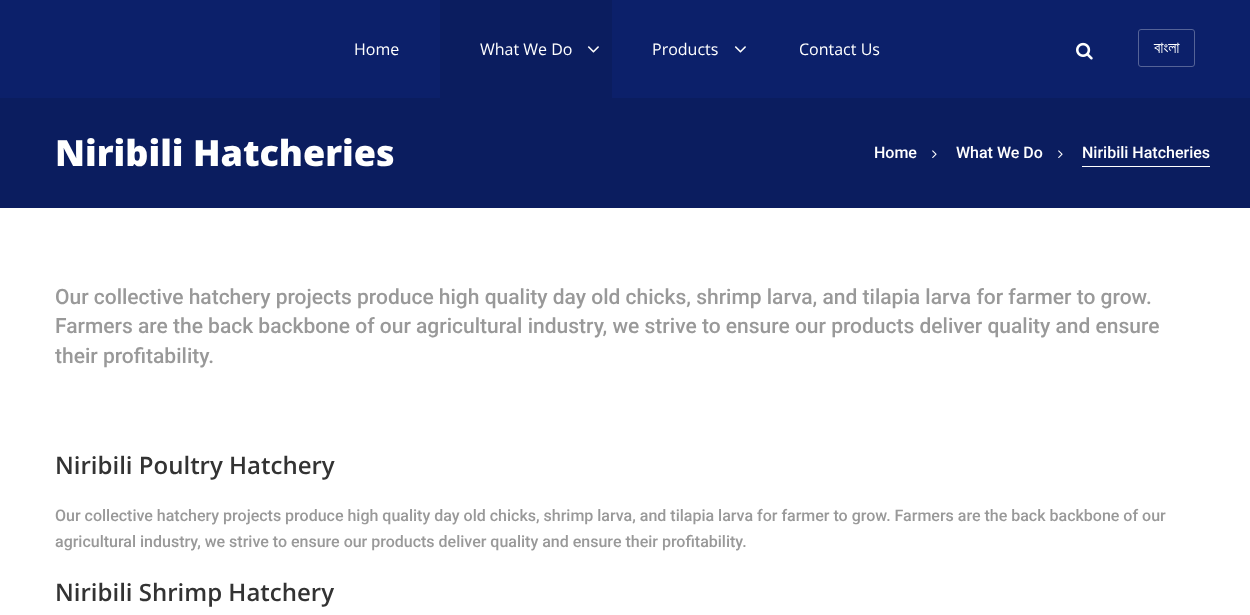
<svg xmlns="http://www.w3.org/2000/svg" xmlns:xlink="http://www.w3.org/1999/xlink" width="1250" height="615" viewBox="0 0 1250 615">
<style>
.cls-1{font:16px Open Sans;fill:#ffffff}
.cls-2{font:16px FreeSans;fill:#ffffff}
.cls-3{font:800 36px Open Sans;fill:#ffffff}
.cls-4{font:500 16px Roboto;fill:#ffffff}
.cls-5{font:500 21px Roboto;fill:#999999}
.cls-6{font:600 24px Open Sans;fill:#333333}
.cls-7{font:500 16px Roboto;fill:#999999}
</style>
<rect width="100%" height="100%" fill="#ffffff"/>
<rect fill="#0c206a" x="0" y="0" width="1250" height="98"/>
<rect fill="#0b1d5f" x="440" y="0" width="172" height="98"/>
<image xlink:href="image0.png" x="587" y="46" width="12" height="7"/>
<image xlink:href="image1.png" x="734" y="46" width="12" height="7"/>
<image xlink:href="image2.png" x="1076" y="42" width="17" height="18"/>
<rect fill="none" stroke="#556397" x="1138.5" y="29.5" width="56" height="37" rx="2.5"/>
<rect fill="#0b1d5f" x="0" y="98" width="1250" height="110"/>
<image xlink:href="image3.png" x="932" y="150" width="5" height="8"/>
<image xlink:href="image3.png" x="1058" y="150" width="5" height="8"/>
<rect fill="#ffffff" x="1082" y="166" width="128" height="1"/>
<text class="cls-1" x="354" y="55">Home</text>
<text class="cls-1" x="480" y="55">What We Do</text>
<text class="cls-1" x="652" y="55">Products</text>
<text class="cls-1" x="799" y="55">Contact Us</text>
<text class="cls-2" x="1154" y="53">বাংলা</text>
<text class="cls-3" x="55" y="166">Niribili Hatcheries</text>
<text class="cls-4" x="874" y="158">Home</text>
<text class="cls-4" x="956" y="158">What We Do</text>
<text class="cls-4" x="1082" y="158">Niribili Hatcheries</text>
<text class="cls-5"><tspan x="55" y="304">Our collective hatchery projects produce high quality day old chicks, shrimp larva, and tilapia larva for farmer to grow.</tspan><tspan x="55" y="333">Farmers are the back backbone of our agricultural industry, we strive to ensure our products deliver quality and ensure</tspan><tspan x="55" y="363">their profitability.</tspan></text>
<text class="cls-6" x="55" y="474">Niribili Poultry Hatchery</text>
<text class="cls-7"><tspan x="55" y="521">Our collective hatchery projects produce high quality day old chicks, shrimp larva, and tilapia larva for farmer to grow. Farmers are the back backbone of our</tspan><tspan x="55" y="547">agricultural industry, we strive to ensure our products deliver quality and ensure their profitability.</tspan></text>
<text class="cls-6" x="55" y="601">Niribili Shrimp Hatchery</text>
</svg>
